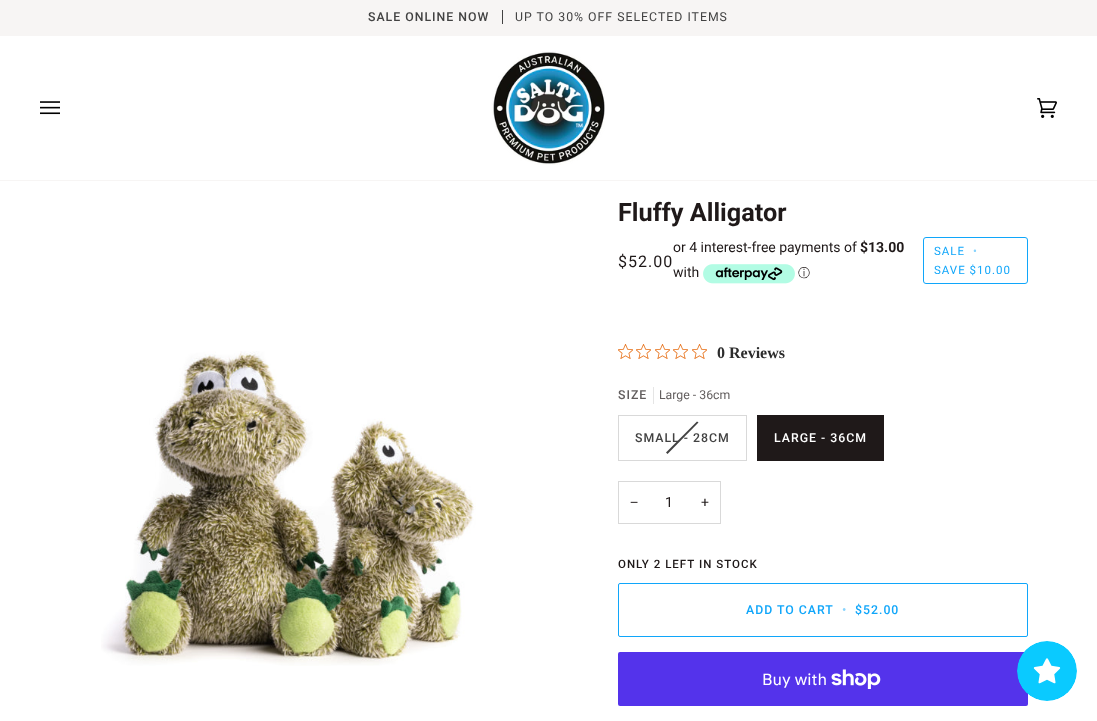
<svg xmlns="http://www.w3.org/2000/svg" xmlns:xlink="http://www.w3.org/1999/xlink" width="1097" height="721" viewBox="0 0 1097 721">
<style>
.cls-1{font:500 12.3px Roboto;letter-spacing:1px;fill:#424242}
.cls-2{font:12.3px Roboto;letter-spacing:1px;fill:#424242}
.cls-3{font:bold 25.25px Roboto;fill:#1f1919}
.cls-4{font:16px Roboto;letter-spacing:1px;fill:#1f1919}
.cls-5{font:14px Roboto;fill:#1f1919}
.cls-6{font:bold 14px Roboto;fill:#1f1919}
.cls-7{font:500 12px WenQuanYi Zen Hei;fill:#1f1919}
.cls-8{font:11.5px Roboto;letter-spacing:1px;fill:#10a6fa}
.cls-9{font:11.5px Roboto;letter-spacing:1px;fill:#88d3fd}
.cls-10{font:bold 16px Liberation Serif;fill:#2c2c2c}
.cls-11{font:500 12.3px Roboto;letter-spacing:1px;fill:#625e5e}
.cls-12{font:12.3px Roboto;fill:#625e5e}
.cls-13{font:500 12.3px Roboto;letter-spacing:1px;fill:#ffffff}
.cls-14{font:14px Liberation Sans;fill:#1f1919}
.cls-15{font:500 11.5px Roboto;letter-spacing:1px;fill:#1f1919}
.cls-16{font:500 12.3px Roboto;letter-spacing:1px;fill:#10a6fa}
.cls-17{font:500 12.3px Roboto;letter-spacing:1px;fill:#88d3fd}
.cls-18{font:16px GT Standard;fill:#ffffff}
</style>
<rect width="100%" height="100%" fill="#ffffff"/>
<rect fill="#f7f5f4" x="0" y="0" width="1097" height="36"/>
<rect fill="#424242" x="502" y="10" width="1" height="14"/>
<rect fill="#f7f5f4" x="0" y="180" width="1097" height="1"/>
<image xlink:href="image0.png" x="40" y="101" width="20" height="14"/>
<image xlink:href="image1.png" x="491" y="51" width="114" height="114"/>
<image xlink:href="image2.png" x="1037" y="98" width="20" height="20"/>
<image xlink:href="image3.png" x="101" y="351" width="375" height="315"/>
<image xlink:href="image4.png" x="703" y="264" width="92" height="20"/>
<rect fill="none" stroke="#10a6fa" x="923.5" y="237.5" width="104" height="46" rx="2.5"/>
<image xlink:href="image5.png" x="618" y="344" width="15" height="15"/>
<image xlink:href="image5.png" x="636" y="344" width="15" height="15"/>
<image xlink:href="image5.png" x="655" y="344" width="15" height="15"/>
<image xlink:href="image5.png" x="673" y="344" width="15" height="15"/>
<image xlink:href="image5.png" x="692" y="344" width="15" height="15"/>
<rect fill="#e5e5e5" x="653" y="387" width="1" height="17"/>
<rect fill="none" stroke="#d9d9d9" x="618.5" y="415.5" width="128" height="45"/>
<path fill="#424242" d="M697 421.5L698.5 422.5L667.5 454L666 452.5Z"/>
<rect fill="#1f1919" x="757" y="415" width="127" height="46"/>
<rect fill="none" stroke="#d9d9d9" x="618.5" y="481.5" width="102" height="42"/>
<rect fill="none" stroke="#10a6fa" x="618.5" y="583.5" width="409" height="53" rx="1.5"/>
<rect fill="#5433eb" x="618" y="652" width="410" height="54" rx="2"/>
<image xlink:href="image6.png" x="831" y="669" width="50" height="20"/>
<image xlink:href="image7.png" x="1017" y="641" width="60" height="60"/>
<text class="cls-1" x="368" y="21">SALE ONLINE NOW</text>
<text class="cls-2" x="515" y="21">UP TO 30% OFF SELECTED ITEMS</text>
<text class="cls-3" x="618" y="221">Fluffy Alligator</text>
<text class="cls-4" x="618" y="267">$52.00</text>
<text class="cls-5" x="673" y="252">or 4 interest-free payments of</text>
<text class="cls-6" x="860" y="252">$13.00</text>
<text class="cls-5" x="673" y="277">with</text>
<text class="cls-7" x="798" y="277">ⓘ</text>
<text class="cls-8" x="934" y="255">SALE</text>
<text class="cls-9" x="973" y="255">•</text>
<text class="cls-8" x="934" y="274">SAVE $10.00</text>
<text class="cls-10" x="717" y="358">0 Reviews</text>
<text class="cls-11" x="618" y="399">SIZE</text>
<text class="cls-12" x="659" y="399">Large - 36cm</text>
<text class="cls-1" x="635" y="442">SMALL - 28CM</text>
<text class="cls-13" x="774" y="442">LARGE - 36CM</text>
<text class="cls-14" x="630" y="507">−</text>
<text class="cls-5" x="665" y="507">1</text>
<text class="cls-5" x="701" y="507">+</text>
<text class="cls-15" x="618" y="568">ONLY 2 LEFT IN STOCK</text>
<text class="cls-16" x="746" y="614">ADD TO CART</text>
<text class="cls-17" x="842" y="614">•</text>
<text class="cls-16" x="855" y="614">$52.00</text>
<text class="cls-18" x="762" y="685">Buy with</text>
</svg>
